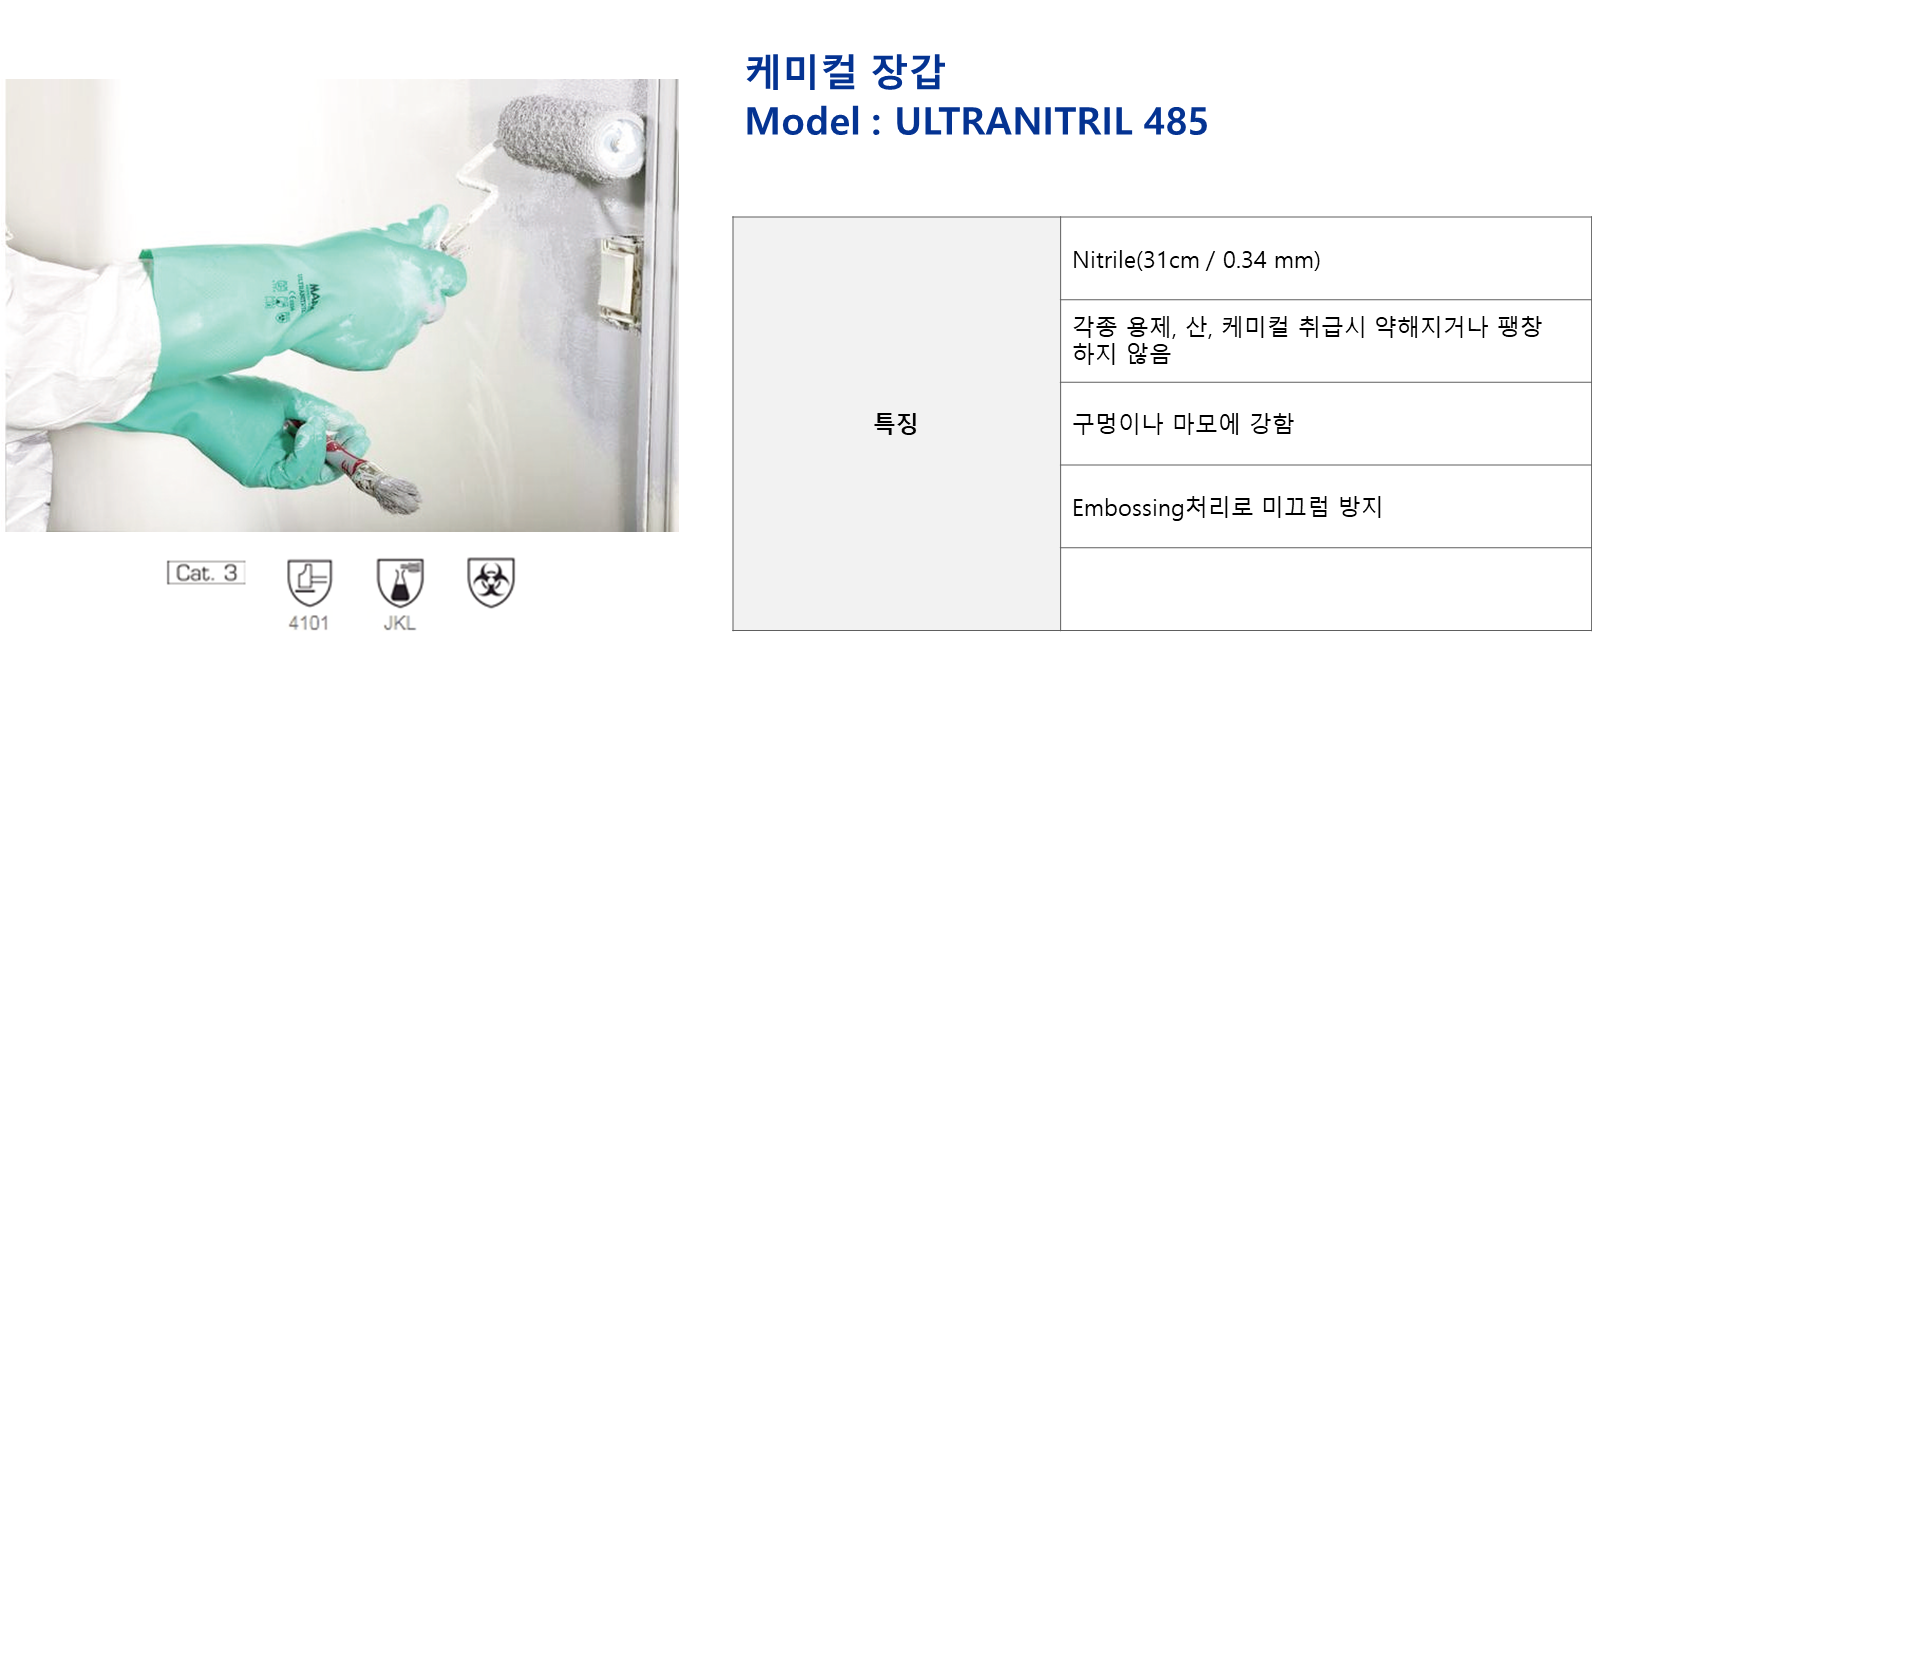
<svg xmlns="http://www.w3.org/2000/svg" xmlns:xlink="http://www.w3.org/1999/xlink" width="1924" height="1664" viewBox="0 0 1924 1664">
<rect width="100%" height="100%" fill="#ffffff"/>
<image xlink:href="image0.png" x="1" y="54" width="1591" height="578"/>
</svg>
